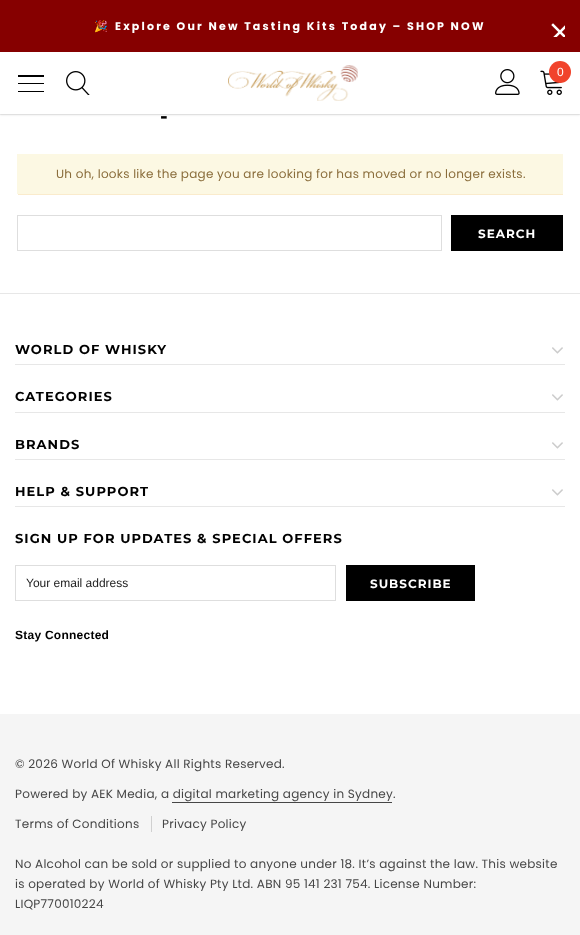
<svg xmlns="http://www.w3.org/2000/svg" xmlns:xlink="http://www.w3.org/1999/xlink" width="580" height="935" viewBox="0 0 580 935">
<style>
.cls-1{font:bold 11px Noto Color Emoji;letter-spacing:2.2px;fill:#ffffff}
.cls-2{font:bold 11px Poppins;letter-spacing:2.2px;fill:#ffffff}
.cls-3{font:12px Arimo;fill:#ffffff}
.cls-4{font:bold 20px Montserrat;letter-spacing:2px;fill:#000000}
.cls-5{font:12px Poppins;letter-spacing:0.25px;fill:#8a6d3b}
.cls-6{font:bold 12px Montserrat;letter-spacing:1px;fill:#ffffff}
.cls-7{font:bold 13px Montserrat;letter-spacing:1.05px;fill:#000000}
.cls-8{font:12px Arimo;fill:#222222}
.cls-9{font:bold 12px Arimo;letter-spacing:0.25px;fill:#000000}
.cls-10{font:12px Poppins;letter-spacing:0.25px;fill:#464646}
</style>
<rect width="100%" height="100%" fill="#ffffff"/>
<rect fill="#000000" fill-opacity="0.1" filter="blur(1px)" x="0" y="1" width="580" height="114"/>
<rect fill="none" stroke="#000000" stroke-opacity="0.06" x="-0.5" y="-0.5" width="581" height="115"/>
<rect fill="#ffffff" x="0" y="52" width="580" height="62"/>
<rect fill="#860000" x="0" y="0" width="580" height="52"/>
<image xlink:href="image0.png" x="551" y="23" width="14" height="14"/>
<rect fill="#000000" x="18" y="75" width="26" height="2"/>
<rect fill="#000000" x="18" y="91" width="26" height="1"/>
<rect fill="#000000" x="18" y="83" width="26" height="1"/>
<image xlink:href="image1.png" x="228" y="65" width="130" height="36"/>
<image xlink:href="image2.png" x="495" y="69" width="25" height="26"/>
<image xlink:href="image3.png" x="66" y="71" width="24" height="24"/>
<image xlink:href="image4.png" x="540" y="70" width="22" height="25"/>
<circle fill="#f1432b" cx="560" cy="72" r="11"/>
<path fill="#fcf8e3" d="M18 154H562C563 154 563 154 563 155V194H17V154Z"/>
<rect fill="#faebcc" x="18" y="194" width="545" height="1"/>
<rect fill="none" stroke="#dedede" x="17.5" y="215.5" width="424" height="35"/>
<rect fill="#000000" x="451" y="215" width="112" height="36"/>
<rect fill="#e7e7e7" x="0" y="293" width="580" height="1"/>
<rect fill="#e7e7e7" x="15" y="364" width="550" height="1"/>
<image xlink:href="image5.png" x="552" y="347" width="11" height="7"/>
<rect fill="#e7e7e7" x="15" y="412" width="550" height="1"/>
<image xlink:href="image5.png" x="552" y="394" width="11" height="7"/>
<rect fill="#e7e7e7" x="15" y="459" width="550" height="1"/>
<image xlink:href="image5.png" x="552" y="442" width="11" height="7"/>
<rect fill="#e7e7e7" x="15" y="506" width="550" height="1"/>
<image xlink:href="image5.png" x="552" y="489" width="11" height="7"/>
<rect fill="none" stroke="#dedede" x="15.5" y="565.5" width="320" height="35"/>
<rect fill="#000000" x="346" y="565" width="129" height="36"/>
<rect fill="#f5f5f5" x="0" y="714" width="580" height="221"/>
<rect fill="#464646" x="172" y="802" width="220" height="1"/>
<rect fill="#d0d0d0" x="151" y="816" width="1" height="16"/>
<text class="cls-1" x="94" y="30">🎉</text>
<text class="cls-2" x="115" y="30">Explore Our New Tasting Kits Today – SHOP NOW</text>
<text class="cls-3" x="557" y="76">0</text>
<text class="cls-4" x="160" y="123">-</text>
<text class="cls-5" x="56" y="178">Uh oh, looks like the page you are looking for has moved or no longer exists.</text>
<text class="cls-6" x="478" y="238">SEARCH</text>
<text class="cls-7" x="15" y="354">WORLD OF WHISKY</text>
<text class="cls-7" x="15" y="401">CATEGORIES</text>
<text class="cls-7" x="15" y="449">BRANDS</text>
<text class="cls-7" x="15" y="496">HELP &amp; SUPPORT</text>
<text class="cls-7" x="15" y="543">SIGN UP FOR UPDATES &amp; SPECIAL OFFERS</text>
<text class="cls-8" x="26" y="587">Your email address</text>
<text class="cls-6" x="370" y="588">SUBSCRIBE</text>
<text class="cls-9" x="15" y="639">Stay Connected</text>
<text class="cls-10" x="15" y="768">© 2026 World Of Whisky All Rights Reserved.</text>
<text class="cls-10" x="15" y="798">Powered by AEK Media, a digital marketing agency in Sydney.</text>
<text class="cls-10" x="15" y="828">Terms of Conditions</text>
<text class="cls-10" x="162" y="828">Privacy Policy</text>
<text class="cls-10"><tspan x="15" y="868">No Alcohol can be sold or supplied to anyone under 18. It’s against the law. This website</tspan><tspan x="15" y="888">is operated by World of Whisky Pty Ltd. ABN 95 141 231 754. License Number:</tspan><tspan x="15" y="908">LIQP770010224</tspan></text>
</svg>
